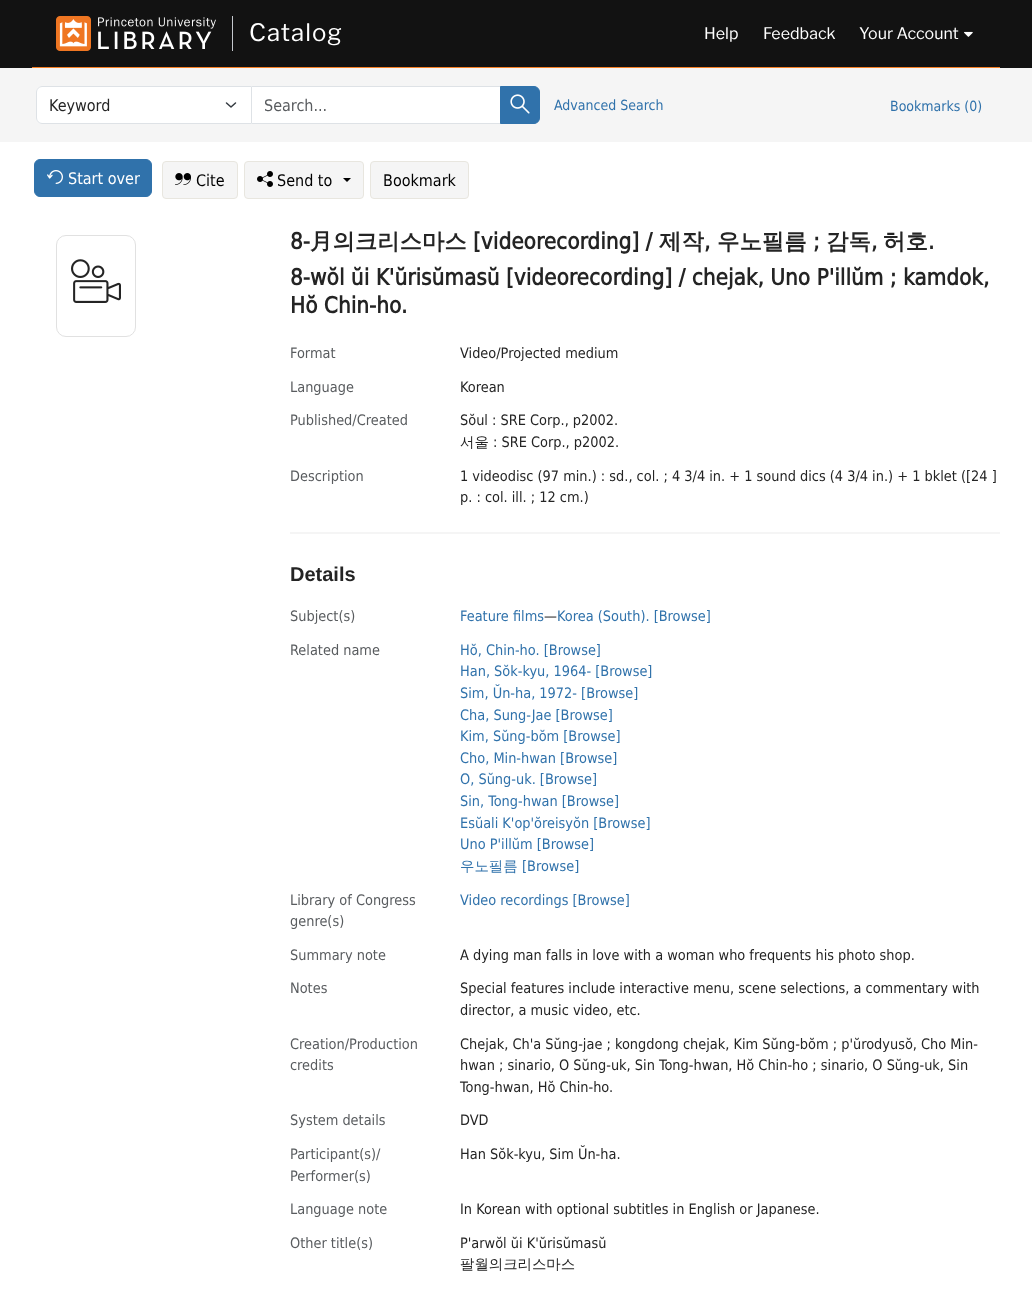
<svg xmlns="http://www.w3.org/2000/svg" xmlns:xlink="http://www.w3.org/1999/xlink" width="1032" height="1299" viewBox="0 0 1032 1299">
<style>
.cls-1{font:24px Libre Franklin;letter-spacing:1px;fill:#ffffff}
.cls-2{font:16px Libre Franklin;fill:#ffffff}
.cls-3{font:16px DejaVu Sans;fill:#242424}
.cls-4{font:16px DejaVu Sans;fill:#595c5f}
.cls-5{font:14px DejaVu Sans;fill:#3072ab}
.cls-6{font:16px DejaVu Sans;fill:#ffffff}
.cls-7{font:16px DejaVu Sans;fill:#000000}
.cls-8{font:bold 22.4px DejaVu Sans;fill:#242424}
.cls-9{font:bold 22.4px WenQuanYi Zen Hei;fill:#242424}
.cls-10{font:14.4px DejaVu Sans;fill:#595c5f}
.cls-11{font:14.4px DejaVu Sans;fill:#242424}
.cls-12{font:500 14.4px WenQuanYi Zen Hei;fill:#242424}
.cls-13{font:bold 20px Liberation Sans;fill:#242424}
.cls-14{font:14.4px DejaVu Sans;fill:#3072ab}
.cls-15{font:500 14.4px WenQuanYi Zen Hei;fill:#3072ab}
</style>
<rect width="100%" height="100%" fill="#f5f5f5"/>
<rect fill="#121212" x="0" y="0" width="1032" height="68"/>
<rect fill="#f58025" x="32" y="67" width="968" height="1"/>
<image xlink:href="image0.png" x="56" y="16" width="160" height="35"/>
<rect fill="#c5c8ce" x="232" y="16" width="1" height="35"/>
<image xlink:href="image1.png" x="964" y="31" width="9" height="6"/>
<rect fill="#ffffff" stroke="#dee2e6" x="251.5" y="86.5" width="249" height="37"/>
<path fill="#ffffff" d="M42 86H252V124H42C38.5 124 36 121.5 36 118V92C36 88.5 38.5 86 42 86Z"/>
<path fill="none" stroke="#343a40" stroke-width="1.5" stroke-linecap="round" stroke-linejoin="round" d="M226.5 103L231 107L235.5 103"/>
<path fill="none" stroke="#dee2e6" d="M42 86.5H251.5V123.5H42C39 123.5 36.5 121 36.5 118V92C36.5 89 39 86.5 42 86.5Z"/>
<path fill="#3072ab" stroke="#3072ab" d="M500.5 86.5H534C537 86.5 539.5 89 539.5 92V118C539.5 121 537 123.5 534 123.5H500.5Z"/>
<image xlink:href="image2.png" x="510" y="94" width="20" height="20"/>
<rect fill="#ffffff" x="0" y="142" width="1032" height="1157"/>
<rect fill="#3072ab" stroke="#3072ab" x="34.5" y="159.5" width="117" height="37" rx="5.5"/>
<image xlink:href="image3.png" x="47" y="170" width="16" height="14"/>
<rect fill="#f5f5f5" stroke="#e8e6df" x="162.5" y="161.5" width="75" height="37" rx="3.5"/>
<image xlink:href="image4.png" x="175" y="173" width="16" height="12"/>
<rect fill="#f5f5f5" stroke="#e8e6df" x="244.5" y="161.5" width="119" height="37" rx="3.5"/>
<image xlink:href="image5.png" x="257" y="171" width="16" height="16"/>
<path fill="#000000" d="M343 178H351L347 182Z"/>
<rect fill="#f5f5f5" stroke="#e8e6df" x="370.5" y="161.5" width="98" height="37" rx="3.5"/>
<rect fill="none" stroke="#e1e1e1" x="56.5" y="235.5" width="79" height="101" rx="9.5"/>
<image xlink:href="image6.png" x="71" y="259" width="50" height="44"/>
<rect fill="#f5f5f5" x="290" y="532" width="710" height="2"/>
<text class="cls-1" x="249" y="41">Catalog</text>
<text class="cls-2" x="704" y="39">Help</text>
<text class="cls-2" x="763" y="39">Feedback</text>
<text class="cls-2" x="859" y="39">Your Account</text>
<text class="cls-3" x="49" y="111">Keyword</text>
<text class="cls-4" x="264" y="111">Search...</text>
<text class="cls-5" x="554" y="110">Advanced Search</text>
<text class="cls-5" x="890" y="111">Bookmarks (0)</text>
<text class="cls-6" x="68" y="184">Start over</text>
<text class="cls-7" x="196" y="186">Cite</text>
<text class="cls-7" x="277" y="186">Send to</text>
<text class="cls-7" x="383" y="186">Bookmark</text>
<text class="cls-8" x="290" y="249">8-</text>
<text class="cls-9" x="310" y="249">月의크리스마스</text>
<text class="cls-8" x="473" y="249">[videorecording] /</text>
<text class="cls-9" x="659" y="249">제작</text>
<text class="cls-8" x="704" y="249">,</text>
<text class="cls-9" x="717" y="249">우노필름</text>
<text class="cls-8" x="813" y="249">;</text>
<text class="cls-9" x="826" y="249">감독</text>
<text class="cls-8" x="871" y="249">,</text>
<text class="cls-9" x="883" y="249">허호</text>
<text class="cls-8" x="928" y="249">.</text>
<text class="cls-8"><tspan x="290" y="285">8-wŏl ŭi K'ŭrisŭmasŭ [videorecording] / chejak, Uno P'illŭm ; kamdok,</tspan><tspan x="290" y="313">Hŏ Chin-ho.</tspan></text>
<text class="cls-10" x="290" y="358">Format</text>
<text class="cls-11" x="460" y="358">Video/Projected medium</text>
<text class="cls-10" x="290" y="392">Language</text>
<text class="cls-11" x="460" y="392">Korean</text>
<text class="cls-10" x="290" y="425">Published/Created</text>
<text class="cls-11" x="460" y="425">Sŏul : SRE Corp., p2002.</text>
<text class="cls-12" x="460" y="447">서울</text>
<text class="cls-11" x="493" y="447">: SRE Corp., p2002.</text>
<text class="cls-10" x="290" y="481">Description</text>
<text class="cls-11"><tspan x="460" y="481">1 videodisc (97 min.) : sd., col. ; 4 3/4 in. + 1 sound dics (4 3/4 in.) + 1 bklet ([24 ]</tspan><tspan x="460" y="502">p. : col. ill. ; 12 cm.)</tspan></text>
<text class="cls-13" x="290" y="581">Details</text>
<text class="cls-10" x="290" y="621">Subject(s)</text>
<text class="cls-14" x="460" y="621">Feature films</text>
<text class="cls-11" x="544" y="621">—</text>
<text class="cls-14" x="557" y="621">Korea (South). [Browse]</text>
<text class="cls-10" x="290" y="655">Related name</text>
<text class="cls-14"><tspan x="460" y="655">Hŏ, Chin-ho. [Browse]</tspan><tspan x="460" y="676">Han, Sŏk-kyu, 1964- [Browse]</tspan><tspan x="460" y="698">Sim, Ŭn-ha, 1972- [Browse]</tspan><tspan x="460" y="720">Cha, Sung-Jae [Browse]</tspan><tspan x="460" y="741">Kim, Sŭng-bŏm [Browse]</tspan><tspan x="460" y="763">Cho, Min-hwan [Browse]</tspan><tspan x="460" y="784">O, Sŭng-uk. [Browse]</tspan><tspan x="460" y="806">Sin, Tong-hwan [Browse]</tspan><tspan x="460" y="828">Esŭali K'op'ŏreisyŏn [Browse]</tspan><tspan x="460" y="849">Uno P'illŭm [Browse]</tspan></text>
<text class="cls-15" x="460" y="871">우노필름</text>
<text class="cls-14" x="522" y="871">[Browse]</text>
<text class="cls-10"><tspan x="290" y="905">Library of Congress</tspan><tspan x="290" y="926">genre(s)</tspan></text>
<text class="cls-14" x="460" y="905">Video recordings [Browse]</text>
<text class="cls-10" x="290" y="960">Summary note</text>
<text class="cls-11" x="460" y="960">A dying man falls in love with a woman who frequents his photo shop.</text>
<text class="cls-10" x="290" y="993">Notes</text>
<text class="cls-11"><tspan x="460" y="993">Special features include interactive menu, scene selections, a commentary with</tspan><tspan x="460" y="1015">director, a music video, etc.</tspan></text>
<text class="cls-10"><tspan x="290" y="1049">Creation/Production</tspan><tspan x="290" y="1070">credits</tspan></text>
<text class="cls-11"><tspan x="460" y="1049">Chejak, Ch'a Sŭng-jae ; kongdong chejak, Kim Sŭng-bŏm ; p'ŭrodyusŏ, Cho Min-</tspan><tspan x="460" y="1070">hwan ; sinario, O Sŭng-uk, Sin Tong-hwan, Hŏ Chin-ho ; sinario, O Sŭng-uk, Sin</tspan><tspan x="460" y="1092">Tong-hwan, Hŏ Chin-ho.</tspan></text>
<text class="cls-10" x="290" y="1125">System details</text>
<text class="cls-11" x="460" y="1125">DVD</text>
<text class="cls-10"><tspan x="290" y="1159">Participant(s)/</tspan><tspan x="290" y="1181">Performer(s)</tspan></text>
<text class="cls-11" x="460" y="1159">Han Sŏk-kyu, Sim Ŭn-ha.</text>
<text class="cls-10" x="290" y="1214">Language note</text>
<text class="cls-11" x="460" y="1214">In Korean with optional subtitles in English or Japanese.</text>
<text class="cls-10" x="290" y="1248">Other title(s)</text>
<text class="cls-11" x="460" y="1248">P'arwŏl ŭi K'ŭrisŭmasŭ</text>
<text class="cls-12" x="460" y="1269">팔월의크리스마스</text>
</svg>
